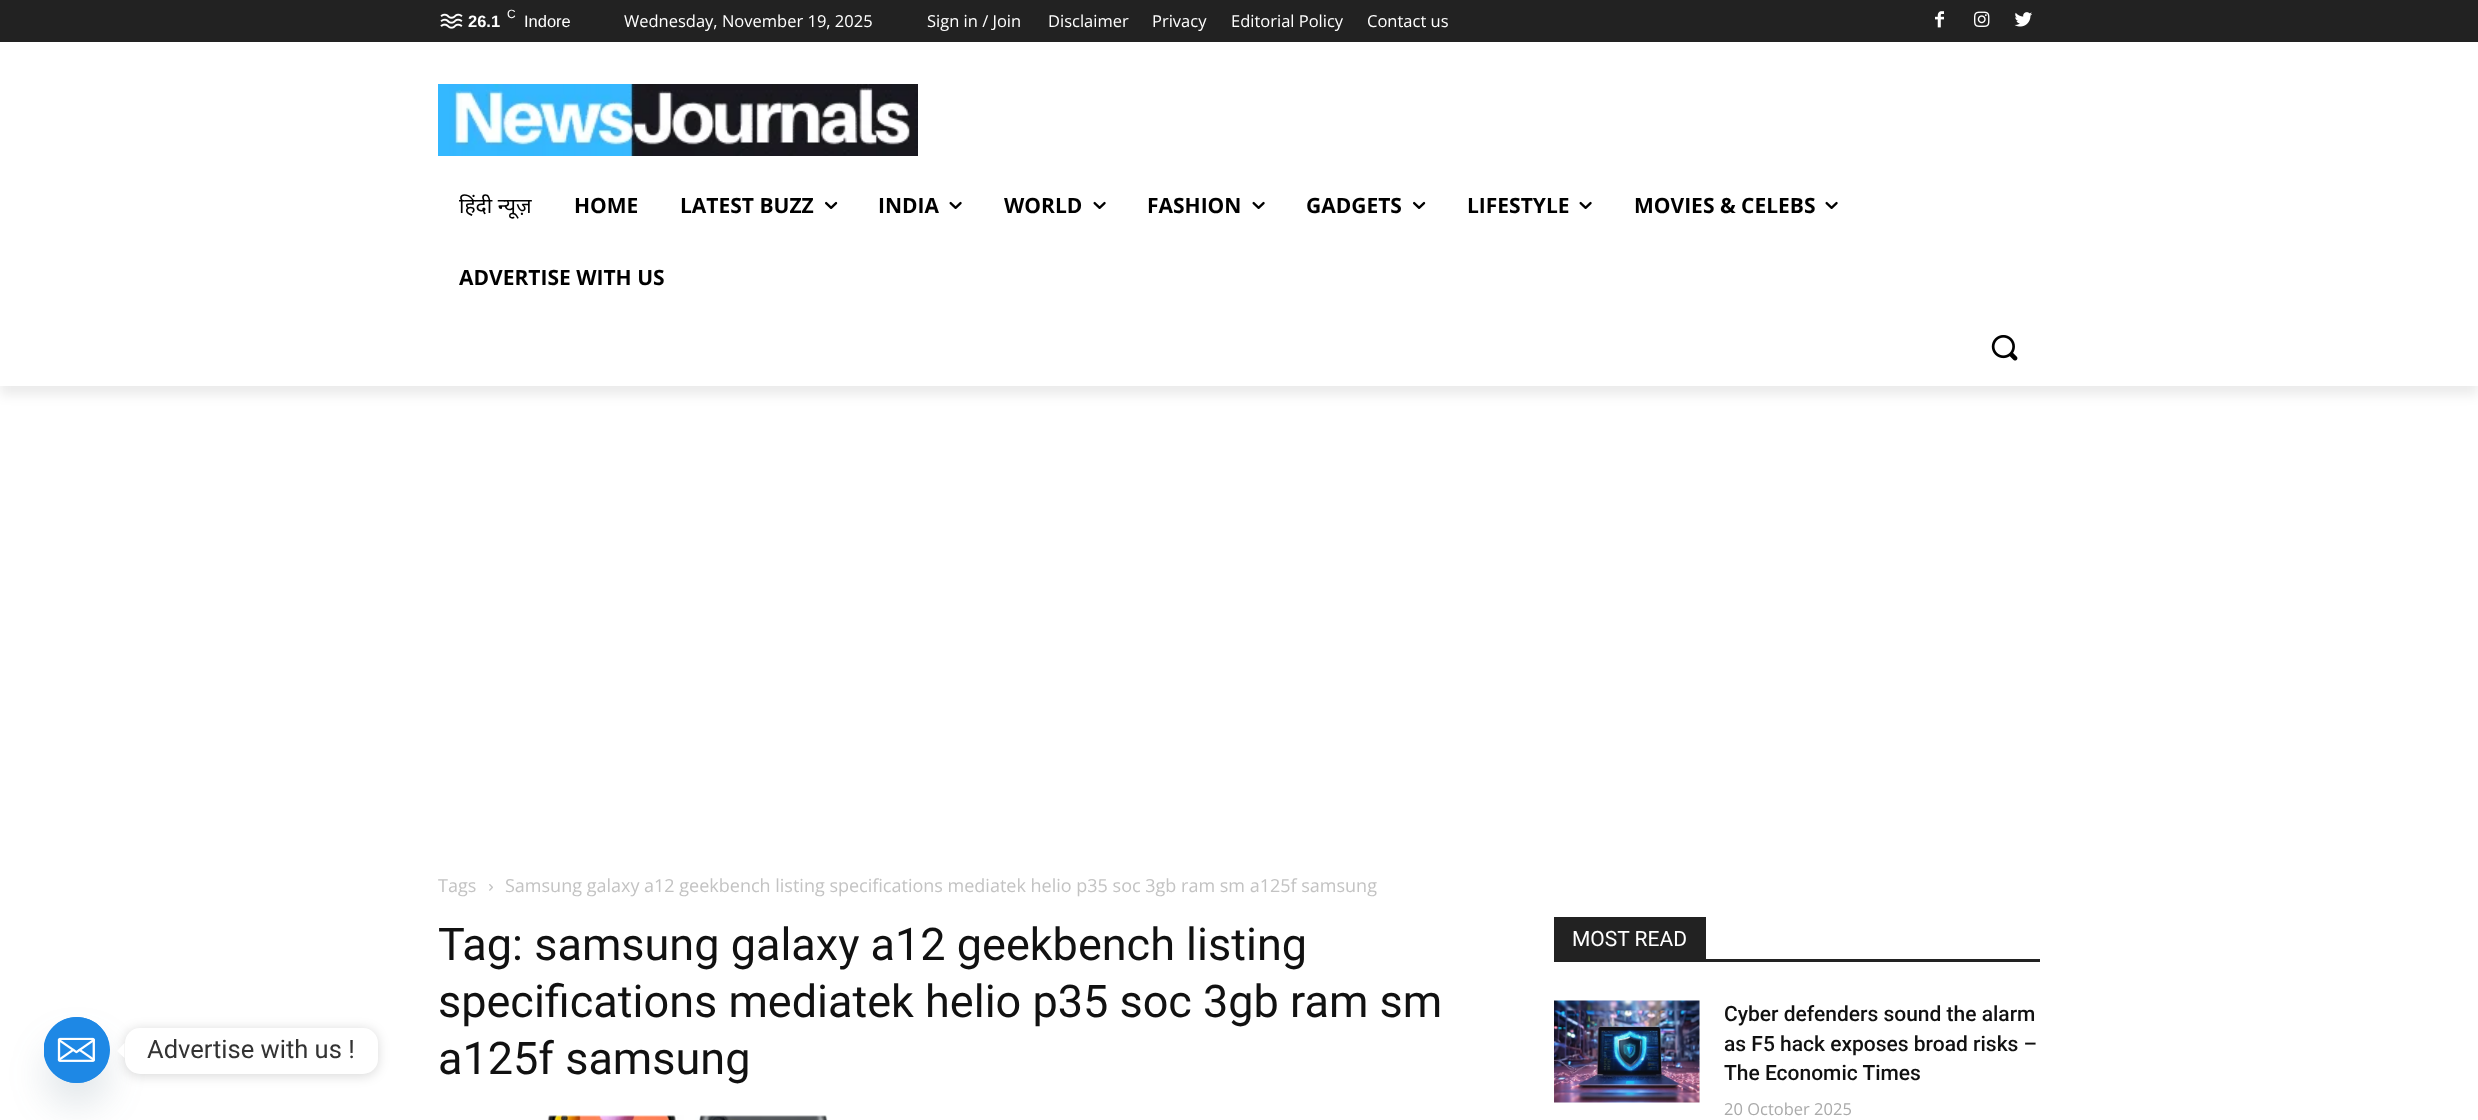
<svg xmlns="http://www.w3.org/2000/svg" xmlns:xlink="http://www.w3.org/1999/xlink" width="2478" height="1120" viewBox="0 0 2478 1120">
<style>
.cls-1{font:25.5px Roboto;fill:#333333}
.cls-2{font:12px Liberation Sans;fill:#ffffff}
.cls-3{font:bold 16.5px Liberation Sans;fill:#ffffff}
.cls-4{font:16.5px Liberation Sans;fill:#ffffff}
.cls-5{font:16.5px Open Sans;fill:#ffffff}
.cls-6{font:21px Noto Sans;fill:#000000}
.cls-7{font:bold 21px Open Sans;fill:#000000}
.cls-8{font:18px Open Sans;fill:#c3c3c3}
.cls-9{font:45px Roboto;fill:#111111}
.cls-10{font:21px Roboto;fill:#ffffff}
.cls-11{font:500 21px Roboto;fill:#111111}
.cls-12{font:16.5px Open Sans;fill:#aaaaaa}
</style>
<defs>
<clipPath id="clip1"><path d="M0 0H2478V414H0ZM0 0H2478V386H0Z" clip-rule="evenodd"/></clipPath>
</defs>
<rect width="100%" height="100%" fill="#ffffff"/>
<rect fill="#49687e" fill-opacity="0.16" filter="blur(18px)" x="44" y="1041" width="66" height="66" rx="33"/>
<circle fill="#1e88e5" cx="77" cy="1050" r="33"/>
<image xlink:href="image0.png" x="44" y="1017" width="66" height="66"/>
<rect fill="#000000" fill-opacity="0.15" filter="blur(6px)" x="125" y="1029" width="253" height="47" rx="15"/>
<rect fill="#ffffff" x="125" y="1028" width="253" height="46" rx="15"/>
<path fill="#ffffff" d="M124.5 1043V1058L117 1051Z"/>
<rect fill="#222222" x="0" y="0" width="2478" height="42"/>
<image xlink:href="image1.png" x="440" y="13" width="23" height="16"/>
<image xlink:href="image2.png" x="1935" y="11" width="9" height="17"/>
<image xlink:href="image3.png" x="1974" y="11" width="16" height="16"/>
<image xlink:href="image4.png" x="2014" y="12" width="18" height="15"/>
<image xlink:href="image5.png" x="438" y="84" width="480" height="72"/>
<g clip-path="url(#clip1)">
<rect fill="#000000" fill-opacity="0.08" filter="blur(6px)" x="0" y="9" width="2478" height="386"/>
</g>
<image xlink:href="image6.png" x="825" y="201" width="13" height="8"/>
<image xlink:href="image7.png" x="949" y="201" width="13" height="8"/>
<image xlink:href="image7.png" x="1093" y="201" width="13" height="8"/>
<image xlink:href="image7.png" x="1252" y="201" width="13" height="8"/>
<image xlink:href="image6.png" x="1413" y="201" width="13" height="8"/>
<image xlink:href="image7.png" x="1579" y="201" width="13" height="8"/>
<image xlink:href="image7.png" x="1825" y="201" width="13" height="8"/>
<image xlink:href="image8.png" x="1991" y="335" width="27" height="26"/>
<image xlink:href="image9.png" x="489" y="884" width="4" height="7"/>
<image xlink:href="image10.png" x="547" y="1115" width="281" height="5"/>
<rect fill="#222222" x="1554" y="959" width="486" height="3"/>
<rect fill="#222222" x="1554" y="917" width="152" height="42"/>
<image xlink:href="image11.png" x="1554" y="1000" width="146" height="103"/>
<text class="cls-1" x="147" y="1058">Advertise with us !</text>
<text class="cls-2" x="507" y="18">C</text>
<text class="cls-3" x="468" y="27">26.1</text>
<text class="cls-4" x="524" y="27">Indore</text>
<text class="cls-5" x="624" y="27">Wednesday, November 19, 2025</text>
<text class="cls-5" x="927" y="27">Sign in / Join</text>
<text class="cls-5" x="1048" y="27">Disclaimer</text>
<text class="cls-5" x="1152" y="27">Privacy</text>
<text class="cls-5" x="1231" y="27">Editorial Policy</text>
<text class="cls-5" x="1367" y="27">Contact us</text>
<text class="cls-6" x="459" y="213">हिंदी न्यूज़</text>
<text class="cls-7" x="574" y="213">HOME</text>
<text class="cls-7" x="680" y="213">LATEST BUZZ</text>
<text class="cls-7" x="878" y="213">INDIA</text>
<text class="cls-7" x="1004" y="213">WORLD</text>
<text class="cls-7" x="1147" y="213">FASHION</text>
<text class="cls-7" x="1306" y="213">GADGETS</text>
<text class="cls-7" x="1467" y="213">LIFESTYLE</text>
<text class="cls-7" x="1634" y="213">MOVIES &amp; CELEBS</text>
<text class="cls-7" x="459" y="285">ADVERTISE WITH US</text>
<text class="cls-8" x="438" y="892">Tags</text>
<text class="cls-8" x="505" y="892">Samsung galaxy a12 geekbench listing specifications mediatek helio p35 soc 3gb ram sm a125f samsung</text>
<text class="cls-9"><tspan x="438" y="960">Tag: samsung galaxy a12 geekbench listing</tspan><tspan x="438" y="1017">specifications mediatek helio p35 soc 3gb ram sm</tspan><tspan x="438" y="1074">a125f samsung</tspan></text>
<text class="cls-10" x="1572" y="946">MOST READ</text>
<text class="cls-11"><tspan x="1724" y="1021">Cyber defenders sound the alarm</tspan><tspan x="1724" y="1051">as F5 hack exposes broad risks –</tspan><tspan x="1724" y="1080">The Economic Times</tspan></text>
<text class="cls-12" x="1724" y="1115">20 October 2025</text>
</svg>
